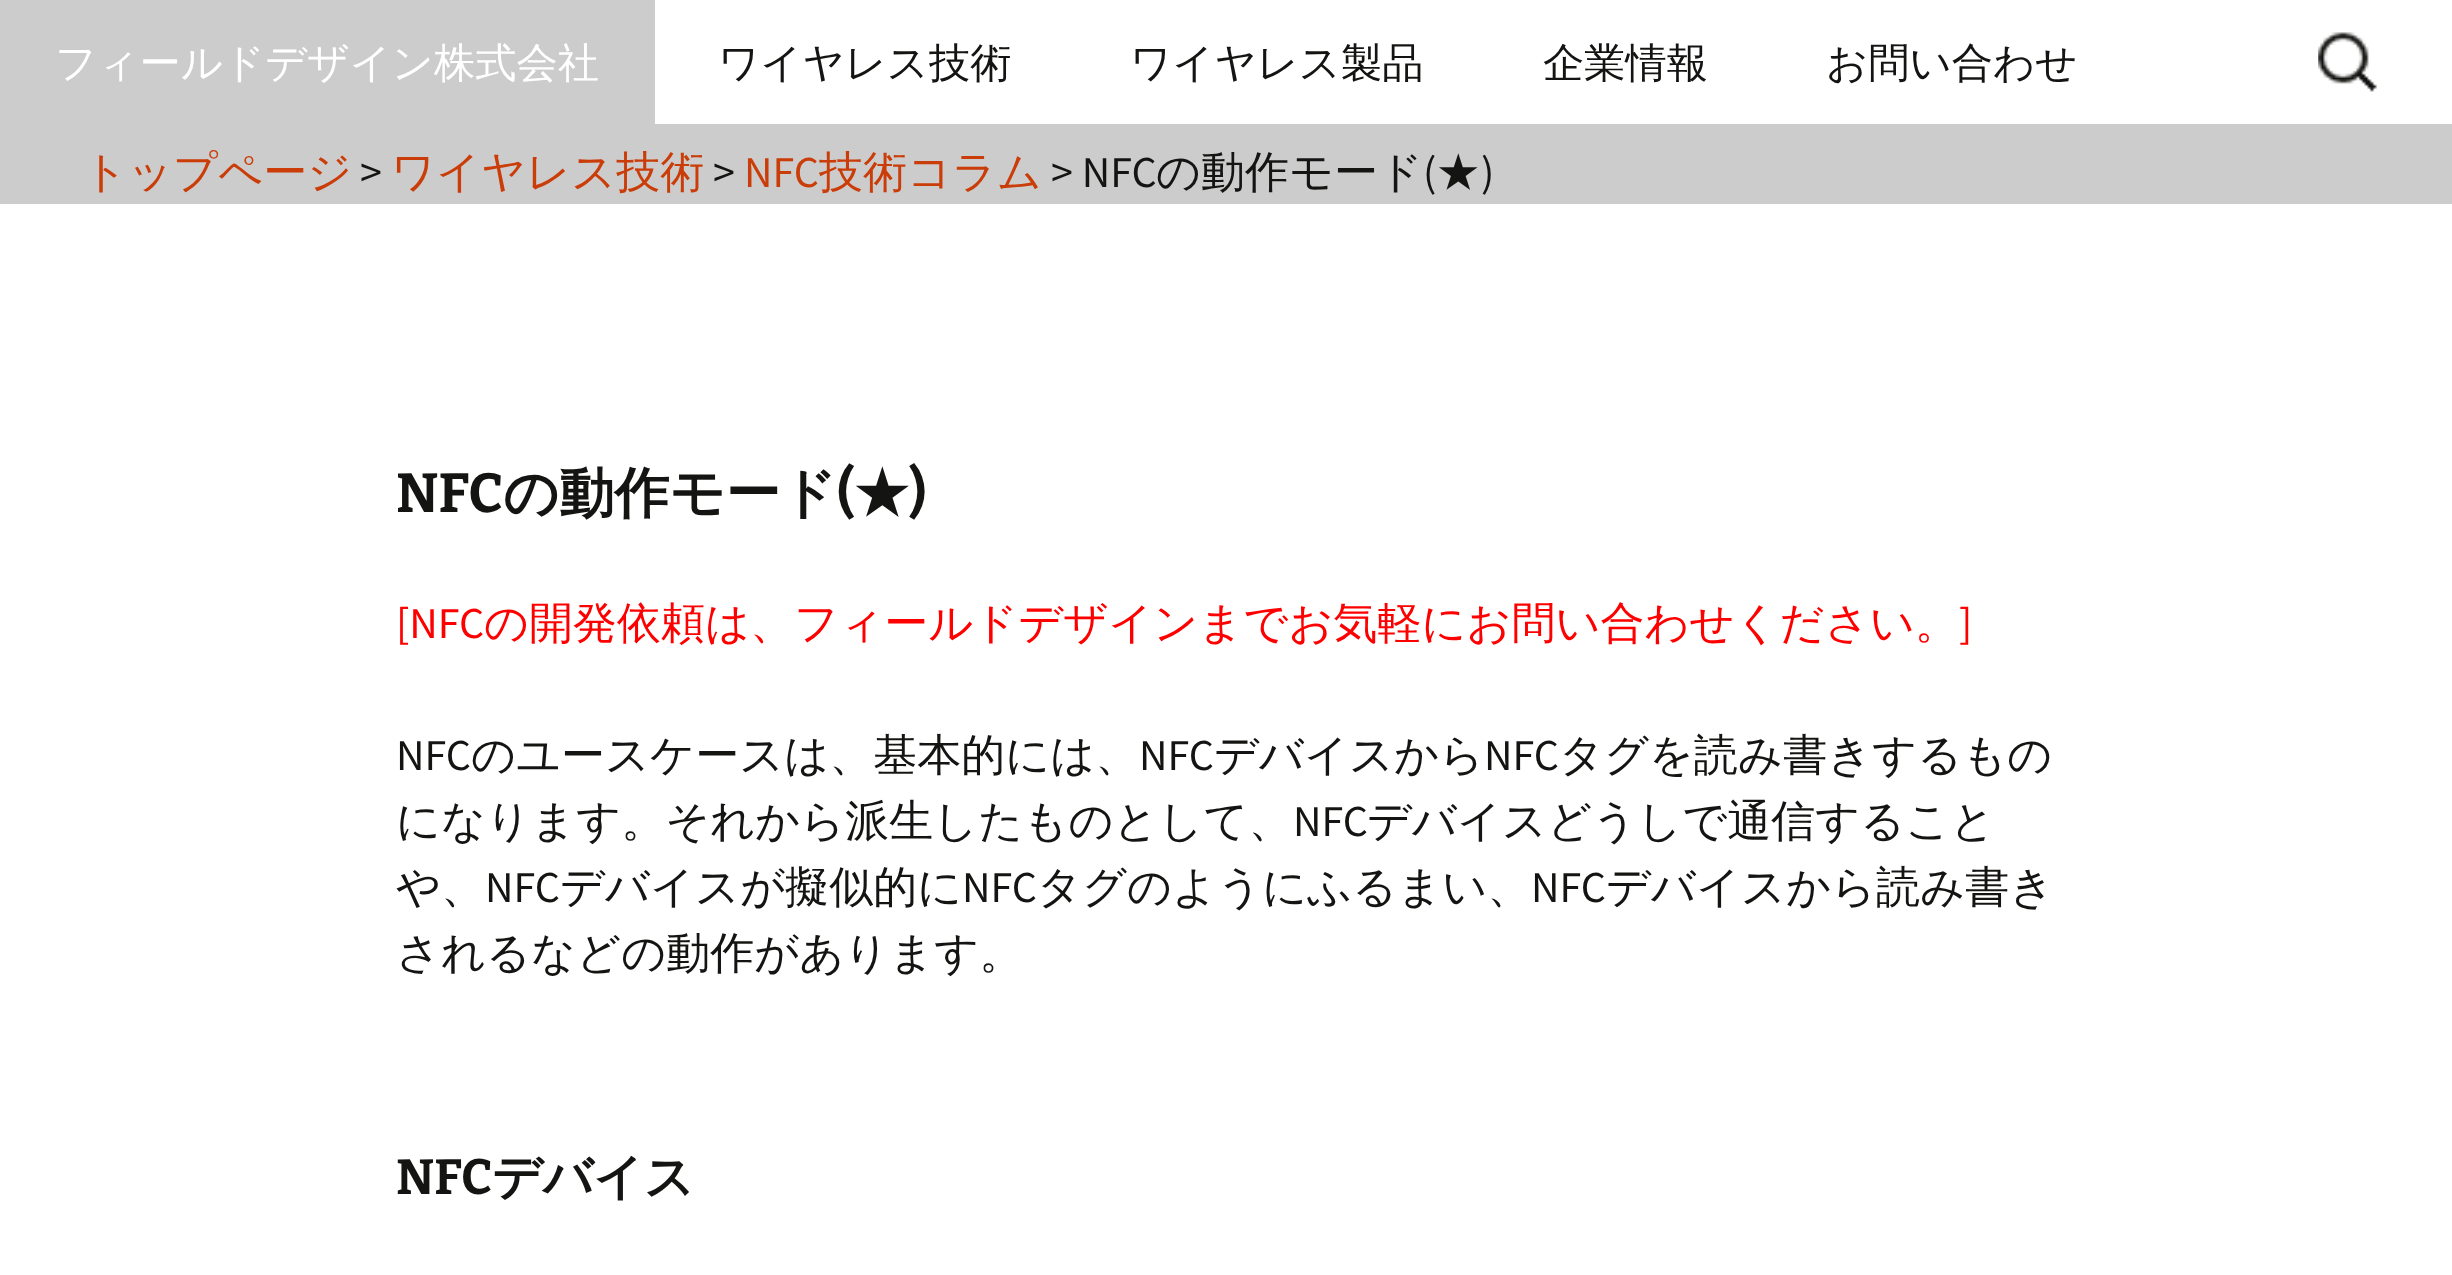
<svg xmlns="http://www.w3.org/2000/svg" xmlns:xlink="http://www.w3.org/1999/xlink" width="2452" height="1275" viewBox="0 0 2452 1275">
<style>
.cls-1{font:500 41.25px WenQuanYi Zen Hei;fill:#ffffff}
.cls-2{font:500 41.25px WenQuanYi Zen Hei;fill:#141412}
.cls-3{font:500 44px WenQuanYi Zen Hei;fill:#ca3c08}
.cls-4{font:500 44px WenQuanYi Zen Hei;fill:#141412}
.cls-5{font:44px Source Sans Pro;fill:#141412}
.cls-6{font:44px Source Sans Pro;fill:#ca3c08}
.cls-7{font:bold 55px Bitter;fill:#141412}
.cls-8{font:bold 55px WenQuanYi Zen Hei;fill:#141412}
.cls-9{font:44px Source Sans Pro;fill:#ff0000}
.cls-10{font:500 44px WenQuanYi Zen Hei;fill:#ff0000}
.cls-11{font:bold 49.5px Bitter;fill:#141412}
.cls-12{font:bold 49.5px WenQuanYi Zen Hei;fill:#141412}
</style>
<rect width="100%" height="100%" fill="#ffffff"/>
<rect fill="#cccccc" x="0" y="124" width="2452" height="80"/>
<rect fill="#cccccc" x="0" y="0" width="655" height="124"/>
<image xlink:href="image0.png" x="2318" y="32" width="59" height="60"/>
<text class="cls-1" x="55" y="77">フィールドデザイン株式会社</text>
<text class="cls-2" x="718" y="77">ワイヤレス技術</text>
<text class="cls-2" x="1130" y="77">ワイヤレス製品</text>
<text class="cls-2" x="1543" y="77">企業情報</text>
<text class="cls-2" x="1826" y="77">お問い合わせ</text>
<text class="cls-3" x="83" y="187">トップページ</text>
<text class="cls-3" x="391" y="187">ワイヤレス技術</text>
<text class="cls-3" x="819" y="187">技術コラム</text>
<text class="cls-4" x="1156" y="187">の動作モード ★</text>
<text class="cls-5" x="360" y="187">&gt;</text>
<text class="cls-5" x="713" y="187">&gt;</text>
<text class="cls-6" x="744" y="187">NFC</text>
<text class="cls-5" x="1051" y="187">&gt; NFC</text>
<text class="cls-5" x="1423" y="187">(</text>
<text class="cls-5" x="1481" y="187">)</text>
<text class="cls-7" x="396" y="512">NFC</text>
<text class="cls-8" x="503" y="512">の動作モード</text>
<text class="cls-7" x="837" y="512">(</text>
<text class="cls-8" x="854" y="512">★</text>
<text class="cls-7" x="909" y="512">)</text>
<text class="cls-9" x="396" y="638">[NFC</text>
<text class="cls-10" x="484" y="638">の開発依頼は、フィールドデザインまでお気軽にお問い合わせください。</text>
<text class="cls-9" x="1959" y="638">]</text>
<text class="cls-5" x="396" y="770">NFC</text>
<text class="cls-4" x="471" y="770">のユースケースは、基本的には、</text>
<text class="cls-5" x="1139" y="770">NFC</text>
<text class="cls-4" x="1214" y="770">デバイスから</text>
<text class="cls-5" x="1484" y="770">NFC</text>
<text class="cls-4" x="1559" y="770">タグを読み書きするもの</text>
<text class="cls-4" x="396" y="836">になります。それから派生したものとして、</text>
<text class="cls-5" x="1293" y="836">NFC</text>
<text class="cls-4" x="1367" y="836">デバイスどうしで通信すること</text>
<text class="cls-4" x="396" y="902">や、</text>
<text class="cls-5" x="485" y="902">NFC</text>
<text class="cls-4" x="560" y="902">デバイスが擬似的に</text>
<text class="cls-5" x="962" y="902">NFC</text>
<text class="cls-4" x="1037" y="902">タグのようにふるまい、</text>
<text class="cls-5" x="1531" y="902">NFC</text>
<text class="cls-4" x="1606" y="902">デバイスから読み書き</text>
<text class="cls-4" x="396" y="968">されるなどの動作があります。</text>
<text class="cls-11" x="396" y="1194">NFC</text>
<text class="cls-12" x="492" y="1194">デバイス</text>
</svg>
